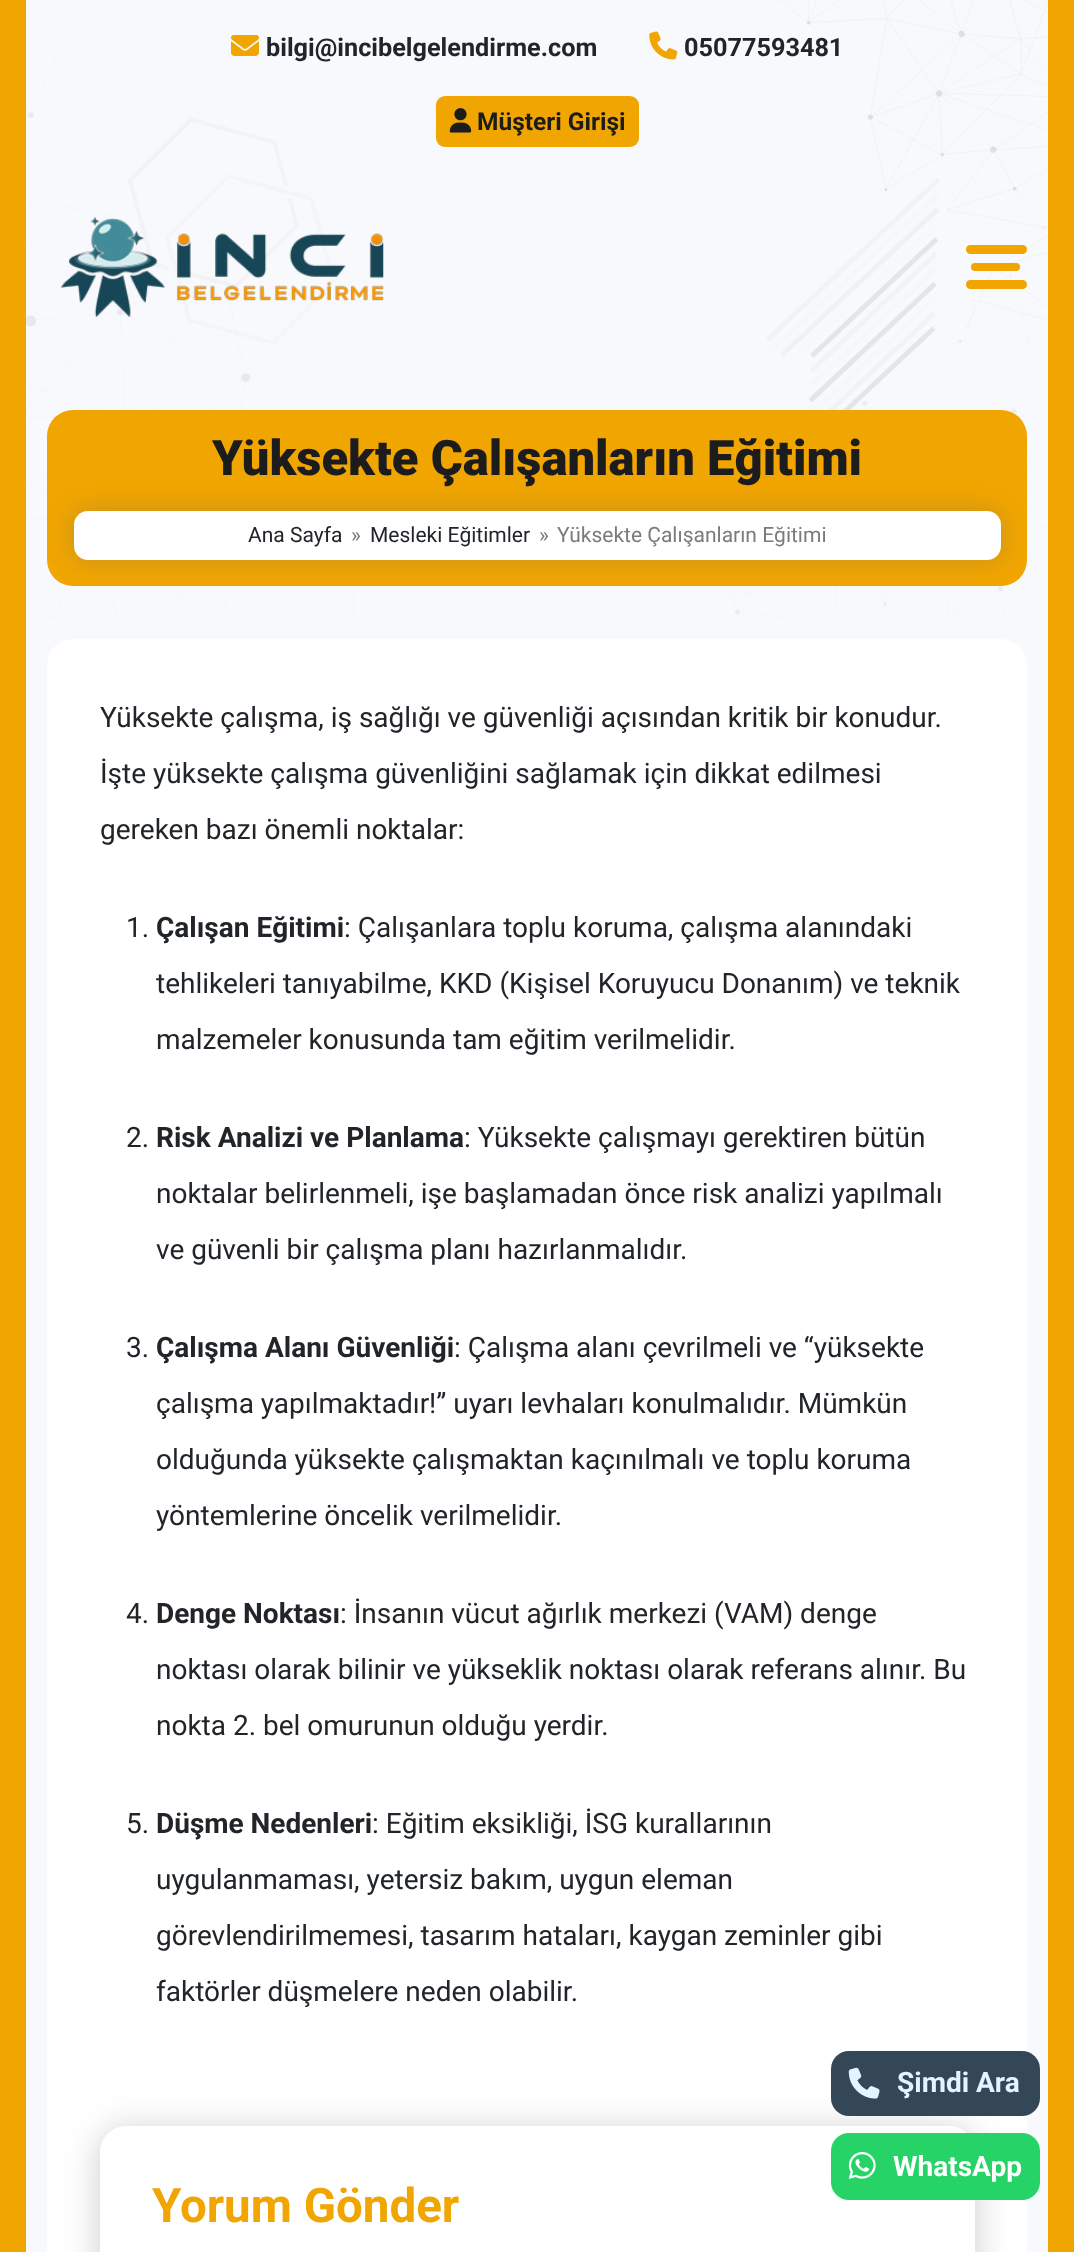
<svg xmlns="http://www.w3.org/2000/svg" xmlns:xlink="http://www.w3.org/1999/xlink" width="1074" height="2252" viewBox="0 0 1074 2252">
<style>
.cls-1{font:bold 25.25px Roboto;fill:#212529}
.cls-2{font:bold 24.5px Roboto;fill:#1c1c1c}
.cls-3{font:900 49px Roboto;fill:#1c1c1c}
.cls-4{font:21px Roboto;fill:#212529}
.cls-5{font:21px Roboto;fill:#7b7b7b}
.cls-6{font:28px Roboto;fill:#212529}
.cls-7{font:bold 28px Roboto;fill:#212529}
.cls-8{font:bold 47.5px Roboto;fill:#f0a500}
.cls-9{font:bold 28px Roboto;fill:#e0f5ff}
.cls-10{font:bold 28px Roboto;fill:#ffffff}
</style>
<rect width="100%" height="100%" fill="#f8f9fc"/>
<image xlink:href="image0.png" x="26" y="0" width="1022" height="619"/>
<rect fill="#f0a500" x="1048" y="0" width="26" height="2252"/>
<rect fill="#f0a500" x="0" y="0" width="26" height="2252"/>
<image xlink:href="image1.png" x="231" y="35" width="28" height="21"/>
<image xlink:href="image2.png" x="649" y="31" width="29" height="29"/>
<rect fill="#f0a500" x="436" y="96" width="203" height="51" rx="9"/>
<image xlink:href="image3.png" x="449" y="108" width="23" height="25"/>
<image xlink:href="image4.png" x="61" y="217" width="323" height="100"/>
<rect fill="#f0a500" x="966" y="245" width="61" height="9" rx="4.5"/>
<rect fill="#f0a500" x="971" y="263" width="49" height="8" rx="4"/>
<rect fill="#f0a500" x="966" y="280" width="61" height="9" rx="4.5"/>
<rect fill="#f0a500" x="47" y="410" width="980" height="176" rx="26"/>
<rect fill="#294789" fill-opacity="0.2" filter="blur(13px)" x="74" y="511" width="927" height="49" rx="14"/>
<rect fill="#ffffff" x="74" y="511" width="927" height="49" rx="14"/>
<rect fill="#ffffff" x="47" y="639" width="980" height="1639" rx="26"/>
<rect fill="#000000" fill-opacity="0.2" filter="blur(17.5px)" x="100" y="2130" width="875" height="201" rx="26"/>
<rect fill="#ffffff" x="100" y="2126" width="875" height="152" rx="26"/>
<rect fill="#334756" x="831" y="2051" width="209" height="65" rx="18"/>
<image xlink:href="image5.png" x="848" y="2067" width="32" height="32"/>
<rect fill="#25d366" x="831" y="2133" width="209" height="67" rx="18"/>
<image xlink:href="image6.png" x="848" y="2152" width="28" height="27"/>
<text class="cls-1" x="266" y="56">bilgi@incibelgelendirme.com</text>
<text class="cls-1" x="684" y="56">05077593481</text>
<text class="cls-2" x="477" y="130">Müşteri Girişi</text>
<text class="cls-3" x="212" y="475">Yüksekte Çalışanların Eğitimi</text>
<text class="cls-4" x="248" y="542">Ana Sayfa</text>
<text class="cls-5" x="351" y="542">»</text>
<text class="cls-4" x="370" y="542">Mesleki Eğitimler</text>
<text class="cls-5" x="539" y="542">»</text>
<text class="cls-5" x="557" y="542">Yüksekte Çalışanların Eğitimi</text>
<text class="cls-6" x="100" y="727">Yüksekte çalışma, iş sağlığı ve güvenliği açısından kritik bir konudur.</text>
<text class="cls-6" x="100" y="783">İşte yüksekte çalışma güvenliğini sağlamak için dikkat edilmesi</text>
<text class="cls-6" x="100" y="839">gereken bazı önemli noktalar:</text>
<text class="cls-6" x="126" y="937">1.</text>
<text class="cls-7" x="156" y="937">Çalışan Eğitimi</text>
<text class="cls-6" x="344" y="937">: Çalışanlara toplu koruma, çalışma alanındaki</text>
<text class="cls-6" x="156" y="993">tehlikeleri tanıyabilme, KKD (Kişisel Koruyucu Donanım) ve teknik</text>
<text class="cls-6" x="156" y="1049">malzemeler konusunda tam eğitim verilmelidir.</text>
<text class="cls-6" x="126" y="1147">2.</text>
<text class="cls-7" x="156" y="1147">Risk Analizi ve Planlama</text>
<text class="cls-6" x="464" y="1147">: Yüksekte çalışmayı gerektiren bütün</text>
<text class="cls-6" x="156" y="1203">noktalar belirlenmeli, işe başlamadan önce risk analizi yapılmalı</text>
<text class="cls-6" x="156" y="1259">ve güvenli bir çalışma planı hazırlanmalıdır.</text>
<text class="cls-6" x="126" y="1357">3.</text>
<text class="cls-7" x="156" y="1357">Çalışma Alanı Güvenliği</text>
<text class="cls-6" x="454" y="1357">: Çalışma alanı çevrilmeli ve “yüksekte</text>
<text class="cls-6" x="156" y="1413">çalışma yapılmaktadır!” uyarı levhaları konulmalıdır. Mümkün</text>
<text class="cls-6" x="156" y="1469">olduğunda yüksekte çalışmaktan kaçınılmalı ve toplu koruma</text>
<text class="cls-6" x="156" y="1525">yöntemlerine öncelik verilmelidir.</text>
<text class="cls-6" x="126" y="1623">4.</text>
<text class="cls-7" x="156" y="1623">Denge Noktası</text>
<text class="cls-6" x="340" y="1623">: İnsanın vücut ağırlık merkezi (VAM) denge</text>
<text class="cls-6" x="156" y="1679">noktası olarak bilinir ve yükseklik noktası olarak referans alınır. Bu</text>
<text class="cls-6" x="156" y="1735">nokta 2. bel omurunun olduğu yerdir.</text>
<text class="cls-6" x="126" y="1833">5.</text>
<text class="cls-7" x="156" y="1833">Düşme Nedenleri</text>
<text class="cls-6" x="372" y="1833">: Eğitim eksikliği, İSG kurallarının</text>
<text class="cls-6" x="156" y="1889">uygulanmaması, yetersiz bakım, uygun eleman</text>
<text class="cls-6" x="156" y="1945">görevlendirilmemesi, tasarım hataları, kaygan zeminler gibi</text>
<text class="cls-6" x="156" y="2001">faktörler düşmelere neden olabilir.</text>
<text class="cls-8" x="152" y="2222">Yorum Gönder</text>
<text class="cls-9" x="897" y="2092">Şimdi Ara</text>
<text class="cls-10" x="893" y="2176">WhatsApp</text>
</svg>
